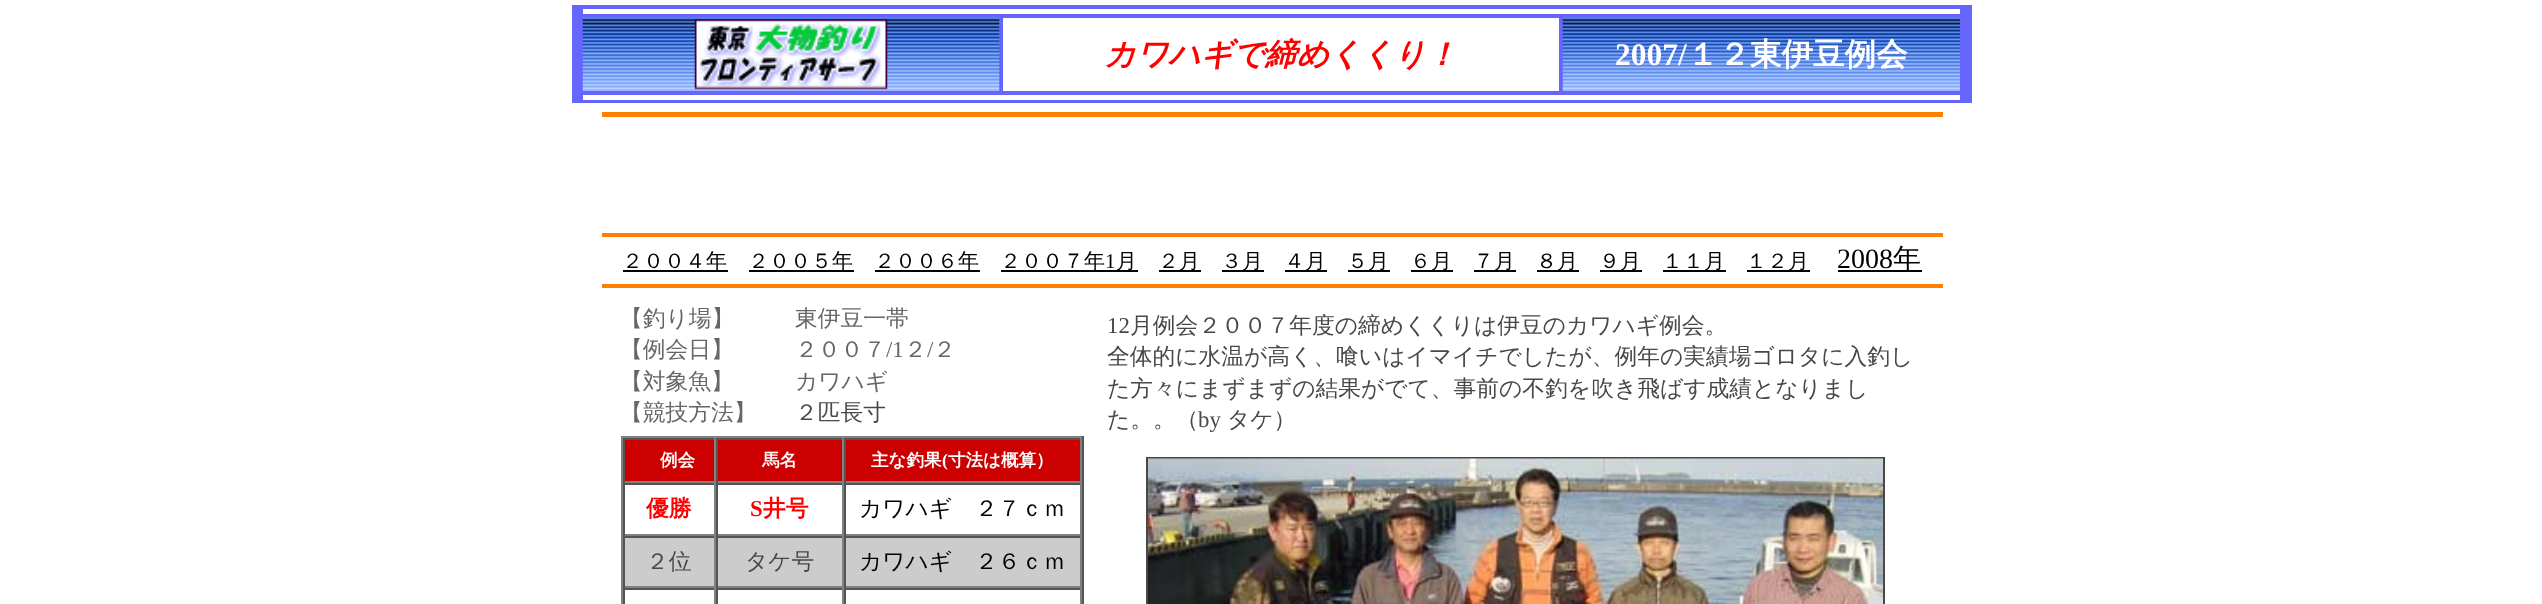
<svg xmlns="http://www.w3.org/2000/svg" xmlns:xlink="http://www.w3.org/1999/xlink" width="2542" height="604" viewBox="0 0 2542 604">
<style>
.cls-1{font:italic bold 31.5px WenQuanYi Zen Hei;fill:#ff0000}
.cls-2{font:bold 31.5px Liberation Serif;fill:#ffffff}
.cls-3{font:bold 31.5px WenQuanYi Zen Hei;fill:#ffffff}
.cls-4{font:500 21px WenQuanYi Zen Hei;fill:#000000}
.cls-5{font:21px Liberation Serif;fill:#000000}
.cls-6{font:28px Liberation Serif;fill:#000000}
.cls-7{font:500 28px WenQuanYi Zen Hei;fill:#000000}
.cls-8{font:500 22.75px WenQuanYi Zen Hei;fill:#666666}
.cls-9{font:22.75px Liberation Serif;fill:#666666}
.cls-10{font:500 22.75px WenQuanYi Zen Hei;fill:#484848}
.cls-11{font:bold 17.5px WenQuanYi Zen Hei;fill:#ffffff}
.cls-12{font:bold 17.5px Liberation Serif;fill:#ffffff}
.cls-13{font:bold 22.75px WenQuanYi Zen Hei;fill:#ff0000}
.cls-14{font:bold 22.75px Liberation Serif;fill:#ff0000}
.cls-15{font:500 22.75px WenQuanYi Zen Hei;fill:#000000}
.cls-16{font:22.75px Liberation Serif;fill:#484848}
</style>
<rect width="100%" height="100%" fill="#ffffff"/>
<rect fill="#6666ff" x="572" y="5" width="1400" height="98"/>
<rect fill="#ffffff" x="583" y="9" width="1377" height="5"/>
<image xlink:href="image0.png" x="582" y="17" width="418" height="74"/>
<image xlink:href="image1.png" x="694" y="19" width="194" height="71"/>
<rect fill="#ffffff" x="1003" y="18" width="556" height="73"/>
<image xlink:href="image2.png" x="1562" y="17" width="398" height="74"/>
<rect fill="#ffffff" x="583" y="95" width="1377" height="5"/>
<rect fill="#ff8000" x="602" y="112" width="1341" height="5"/>
<rect fill="#ff8000" x="602" y="233" width="1341" height="4"/>
<rect fill="#000000" x="623" y="270" width="105" height="2"/>
<rect fill="#000000" x="749" y="270" width="105" height="2"/>
<rect fill="#000000" x="875" y="270" width="105" height="2"/>
<rect fill="#000000" x="1001" y="270" width="137" height="2"/>
<rect fill="#000000" x="1159" y="270" width="42" height="2"/>
<rect fill="#000000" x="1222" y="270" width="42" height="2"/>
<rect fill="#000000" x="1285" y="270" width="42" height="2"/>
<rect fill="#000000" x="1348" y="270" width="42" height="2"/>
<rect fill="#000000" x="1411" y="270" width="42" height="2"/>
<rect fill="#000000" x="1474" y="270" width="42" height="2"/>
<rect fill="#000000" x="1537" y="270" width="42" height="2"/>
<rect fill="#000000" x="1600" y="270" width="42" height="2"/>
<rect fill="#000000" x="1663" y="270" width="63" height="2"/>
<rect fill="#000000" x="1747" y="270" width="63" height="2"/>
<rect fill="#000000" x="1838" y="270" width="84" height="2"/>
<rect fill="#ff8000" x="602" y="284" width="1341" height="4"/>
<rect fill="#808080" x="621" y="436" width="462" height="2"/>
<rect fill="#555555" x="1082" y="436" width="2" height="168"/>
<rect fill="#808080" x="621" y="436" width="2" height="168"/>
<rect fill="#cc0000" x="625" y="440" width="89" height="41"/>
<rect fill="#555555" x="623" y="438" width="459" height="2"/>
<rect fill="#808080" x="714" y="438" width="2" height="45"/>
<rect fill="#808080" x="623" y="481" width="93" height="2"/>
<rect fill="#555555" x="623" y="438" width="2" height="45"/>
<rect fill="#cc0000" x="718" y="440" width="124" height="41"/>
<rect fill="#808080" x="842" y="438" width="2" height="45"/>
<rect fill="#808080" x="716" y="481" width="128" height="2"/>
<rect fill="#555555" x="716" y="438" width="2" height="45"/>
<rect fill="#cc0000" x="846" y="440" width="234" height="41"/>
<rect fill="#808080" x="1080" y="438" width="2" height="45"/>
<rect fill="#808080" x="844" y="481" width="238" height="2"/>
<rect fill="#555555" x="844" y="438" width="2" height="45"/>
<rect fill="#555555" x="623" y="483" width="459" height="2"/>
<rect fill="#808080" x="714" y="483" width="2" height="53"/>
<rect fill="#808080" x="623" y="534" width="93" height="2"/>
<rect fill="#555555" x="623" y="483" width="2" height="53"/>
<rect fill="#808080" x="842" y="483" width="2" height="53"/>
<rect fill="#808080" x="716" y="534" width="128" height="2"/>
<rect fill="#555555" x="716" y="483" width="2" height="53"/>
<rect fill="#808080" x="1080" y="483" width="2" height="53"/>
<rect fill="#808080" x="844" y="534" width="238" height="2"/>
<rect fill="#555555" x="844" y="483" width="2" height="53"/>
<rect fill="#cccccc" x="625" y="538" width="89" height="48"/>
<rect fill="#555555" x="623" y="536" width="459" height="2"/>
<rect fill="#808080" x="714" y="536" width="2" height="52"/>
<rect fill="#808080" x="623" y="586" width="93" height="2"/>
<rect fill="#555555" x="623" y="536" width="2" height="52"/>
<rect fill="#cccccc" x="718" y="538" width="124" height="48"/>
<rect fill="#808080" x="842" y="536" width="2" height="52"/>
<rect fill="#808080" x="716" y="586" width="128" height="2"/>
<rect fill="#555555" x="716" y="536" width="2" height="52"/>
<rect fill="#cccccc" x="846" y="538" width="234" height="48"/>
<rect fill="#808080" x="1080" y="536" width="2" height="52"/>
<rect fill="#808080" x="844" y="586" width="238" height="2"/>
<rect fill="#555555" x="844" y="536" width="2" height="52"/>
<rect fill="#555555" x="623" y="588" width="459" height="2"/>
<rect fill="#808080" x="714" y="588" width="2" height="16"/>
<rect fill="#555555" x="623" y="588" width="2" height="16"/>
<rect fill="#808080" x="842" y="588" width="2" height="16"/>
<rect fill="#555555" x="716" y="588" width="2" height="16"/>
<rect fill="#808080" x="1080" y="588" width="2" height="16"/>
<rect fill="#555555" x="844" y="588" width="2" height="16"/>
<rect fill="none" stroke="#484848" stroke-width="2" x="1147" y="458" width="737" height="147"/>
<image xlink:href="image3.png" x="1148" y="458" width="735" height="146"/>
<text class="cls-1" x="1104" y="65">カワハギで締めくくり！</text>
<text class="cls-2" x="1615" y="65">2007/</text>
<text class="cls-3" x="1687" y="65">１２東伊豆例会</text>
<text class="cls-4" x="622" y="268">２００４年</text>
<text class="cls-4" x="748" y="268">２００５年</text>
<text class="cls-4" x="874" y="268">２００６年</text>
<text class="cls-4" x="1000" y="268">２００７年</text>
<text class="cls-5" x="1105" y="268">1</text>
<text class="cls-4" x="1116" y="268">月</text>
<text class="cls-4" x="1158" y="268">２月</text>
<text class="cls-4" x="1221" y="268">３月</text>
<text class="cls-4" x="1284" y="268">４月</text>
<text class="cls-4" x="1347" y="268">５月</text>
<text class="cls-4" x="1410" y="268">６月</text>
<text class="cls-4" x="1473" y="268">７月</text>
<text class="cls-4" x="1536" y="268">８月</text>
<text class="cls-4" x="1599" y="268">９月</text>
<text class="cls-4" x="1662" y="268">１１月</text>
<text class="cls-4" x="1746" y="268">１２月</text>
<text class="cls-6" x="1837" y="268">2008</text>
<text class="cls-7" x="1893" y="268">年</text>
<text class="cls-8"><tspan x="620" y="326">【釣り場】</tspan><tspan x="620" y="357">【例会日】</tspan><tspan x="620" y="389">【対象魚】</tspan><tspan x="620" y="420">【競技方法】</tspan></text>
<text class="cls-8"><tspan x="795" y="326">東伊豆一帯</tspan><tspan x="795" y="357">２００７</tspan></text>
<text class="cls-9" x="886" y="357">/1</text>
<text class="cls-8" x="904" y="357">２</text>
<text class="cls-9" x="927" y="357">/</text>
<text class="cls-8" x="933" y="357">２</text>
<text class="cls-8" x="795" y="389">カワハギ</text>
<text class="cls-10" x="795" y="420">２匹長寸</text>
<text class="cls-11" x="660" y="466">例会</text>
<text class="cls-11" x="762" y="466">馬名</text>
<text class="cls-11" x="871" y="466">主な釣果</text>
<text class="cls-12" x="942" y="466">(</text>
<text class="cls-11" x="948" y="466">寸法は概算）</text>
<text class="cls-13" x="646" y="516">優勝</text>
<text class="cls-14" x="750" y="516">S</text>
<text class="cls-13" x="763" y="516">井号</text>
<text class="cls-15" x="859" y="516">カワハギ　２７ｃｍ</text>
<text class="cls-10" x="646" y="569">２位</text>
<text class="cls-10" x="745" y="569">タケ号</text>
<text class="cls-15" x="859" y="569">カワハギ</text>
<text class="cls-15" x="975" y="569">２６ｃｍ</text>
<text class="cls-16" x="1107" y="333">12</text>
<text class="cls-10" x="1130" y="333">月例会２００７年度の締めくくりは伊豆のカワハギ例会。</text>
<text class="cls-10"><tspan x="1107" y="364">全体的に水温が高く、喰いはイマイチでしたが、例年の実績場ゴロタに入釣し</tspan><tspan x="1107" y="396">た方々にまずまずの結果がでて、事前の不釣を吹き飛ばす成績となりまし</tspan><tspan x="1107" y="427">た。。（</tspan></text>
<text class="cls-16" x="1198" y="427">by</text>
<text class="cls-10" x="1227" y="427">タケ）</text>
</svg>
